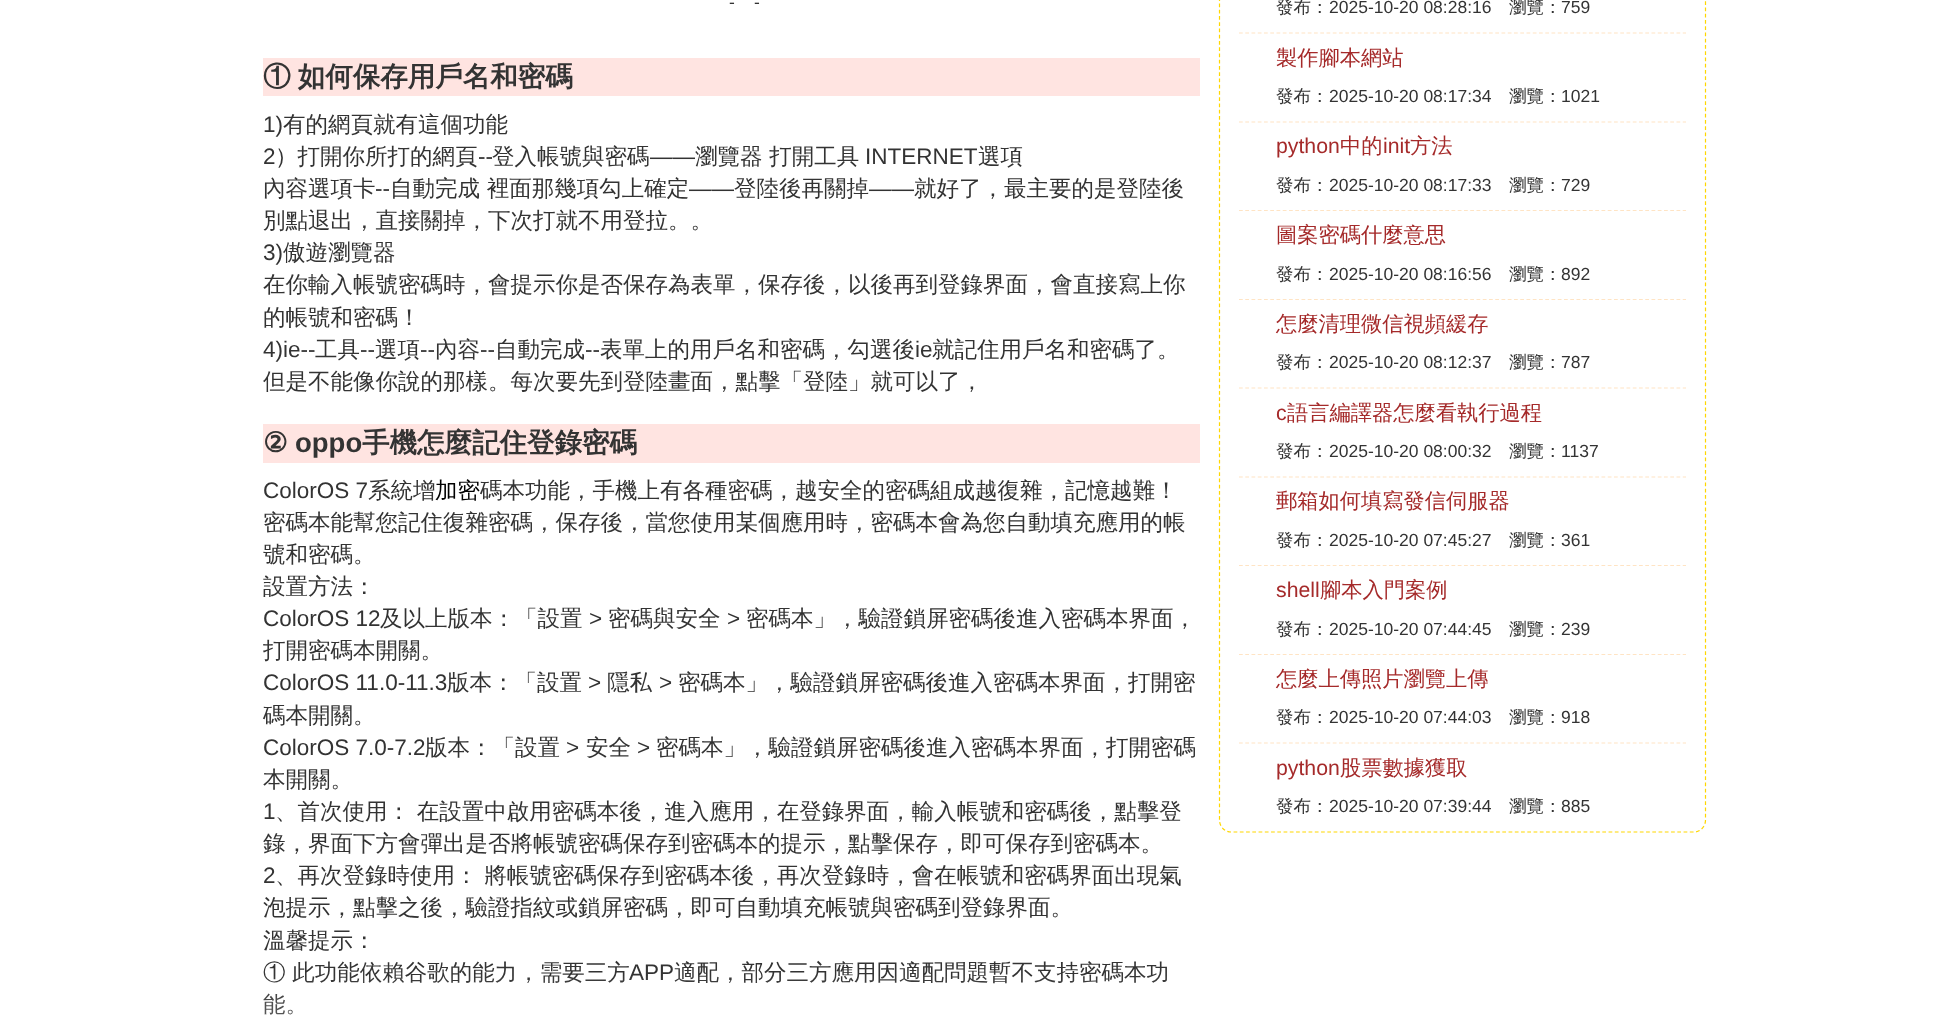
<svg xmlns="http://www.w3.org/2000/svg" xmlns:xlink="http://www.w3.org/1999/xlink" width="1949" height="1029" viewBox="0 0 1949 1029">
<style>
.cls-1{font:17.5px Liberation Sans;fill:#333333}
.cls-2{font:bold 27.5px WenQuanYi Zen Hei;fill:#333333}
.cls-3{font:22.5px Liberation Sans;fill:#333333}
.cls-4{font:500 22.5px WenQuanYi Zen Hei;fill:#333333}
.cls-5{font:bold 27.5px DejaVu Sans;fill:#333333}
.cls-6{font:bold 27.5px Liberation Sans;fill:#333333}
.cls-7{font:500 22.5px WenQuanYi Zen Hei;fill:#000000}
.cls-8{font:500 17.5px WenQuanYi Zen Hei;fill:#333333}
.cls-9{font:500 21.25px WenQuanYi Zen Hei;fill:#a52a2a}
.cls-10{font:21.25px Liberation Sans;fill:#a52a2a}
</style>
<defs>
<clipPath id="clip1"><rect x="263" y="33" width="937" height="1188"/></clipPath>
<linearGradient id="g1" gradientUnits="userSpaceOnUse" x1="263" y1="971" x2="263" y2="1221"><stop offset="0" stop-color="#ffffff" stop-opacity="0"/><stop offset="1" stop-color="#ffffff"/></linearGradient>
</defs>
<rect width="100%" height="100%" fill="#ffffff"/>
<rect fill="#ffe4e1" x="263" y="58" width="937" height="38"/>
<rect fill="#ffe4e1" x="263" y="424" width="937" height="39"/>
<path fill="none" stroke="#ffd700" stroke-width="1.2" stroke-dasharray="3.75 2.5" d="M1231-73H1694C1700.5-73 1705.5-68 1705.5-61V820C1705.5 826.5 1700.5 832 1694 832H1231C1224.5 832 1219.5 826.5 1219.5 820V-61C1219.5-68 1224.5-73 1231-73Z"/>
<path fill="none" stroke="#ffe4c4" stroke-width="1.2" stroke-dasharray="3.75 2.5" d="M1239 33H1686"/>
<path fill="none" stroke="#ffe4c4" stroke-width="1.2" stroke-dasharray="3.75 2.5" d="M1239 122H1686"/>
<path fill="none" stroke="#ffe4c4" stroke-width="1.2" stroke-dasharray="3.75 2.5" d="M1239 210.5H1686"/>
<path fill="none" stroke="#ffe4c4" stroke-width="1.2" stroke-dasharray="3.75 2.5" d="M1239 299.5H1686"/>
<path fill="none" stroke="#ffe4c4" stroke-width="1.2" stroke-dasharray="3.75 2.5" d="M1239 388H1686"/>
<path fill="none" stroke="#ffe4c4" stroke-width="1.2" stroke-dasharray="3.75 2.5" d="M1239 477H1686"/>
<path fill="none" stroke="#ffe4c4" stroke-width="1.2" stroke-dasharray="3.75 2.5" d="M1239 565.5H1686"/>
<path fill="none" stroke="#ffe4c4" stroke-width="1.2" stroke-dasharray="3.75 2.5" d="M1239 654.5H1686"/>
<path fill="none" stroke="#ffe4c4" stroke-width="1.2" stroke-dasharray="3.75 2.5" d="M1239 743H1686"/>
<text class="cls-1" x="729" y="8">-</text>
<text class="cls-1" x="754" y="8">-</text>
<text class="cls-2" x="263" y="86" word-spacing="-1">① 如何保存用戶名和密碼</text>
<text class="cls-3" x="263" y="132">1)</text>
<text class="cls-4" x="283" y="132">有的網頁就有這個功能</text>
<text class="cls-3" x="263" y="164">2</text>
<text class="cls-4" x="275" y="164">）打開你所打的網頁</text>
<text class="cls-3" x="478" y="164">--</text>
<text class="cls-4" x="492" y="164">登入帳號與密碼</text>
<text class="cls-3" x="650" y="164">——</text>
<text class="cls-4" x="695" y="164">瀏覽器 打開工具</text>
<text class="cls-3" x="865" y="164">INTERNET</text>
<text class="cls-4" x="978" y="164">選項</text>
<text class="cls-4" x="263" y="196">內容選項卡</text>
<text class="cls-3" x="375" y="196">--</text>
<text class="cls-4" x="390" y="196">自動完成 裡面那幾項勾上確定</text>
<text class="cls-3" x="689" y="196">——</text>
<text class="cls-4" x="734" y="196">登陸後再關掉</text>
<text class="cls-3" x="869" y="196">——</text>
<text class="cls-4" x="914" y="196">就好了，最主要的是登陸後</text>
<text class="cls-4" x="263" y="228">別點退出，直接關掉，下次打就不用登拉。。</text>
<text class="cls-3" x="263" y="260">3)</text>
<text class="cls-4" x="283" y="260">傲遊瀏覽器</text>
<text class="cls-4"><tspan x="263" y="292">在你輸入帳號密碼時，會提示你是否保存為表單，保存後，以後再到登錄界面，會直接寫上你</tspan><tspan x="263" y="325">的帳號和密碼！</tspan></text>
<text class="cls-3" x="263" y="357">4)ie--</text>
<text class="cls-4" x="315" y="357">工具</text>
<text class="cls-3" x="360" y="357">--</text>
<text class="cls-4" x="375" y="357">選項</text>
<text class="cls-3" x="420" y="357">--</text>
<text class="cls-4" x="435" y="357">內容</text>
<text class="cls-3" x="480" y="357">--</text>
<text class="cls-4" x="495" y="357">自動完成</text>
<text class="cls-3" x="585" y="357">--</text>
<text class="cls-4" x="600" y="357">表單上的用戶名和密碼，勾選後</text>
<text class="cls-3" x="915" y="357">ie</text>
<text class="cls-4" x="932" y="357">就記住用戶名和密碼了。</text>
<text class="cls-4" x="263" y="389">但是不能像你說的那樣。每次要先到登陸畫面，點擊「登陸」就可以了，</text>
<text class="cls-5" x="263" y="452">②</text>
<text class="cls-6" x="295" y="452">oppo</text>
<text class="cls-2" x="362" y="452">手機怎麼記住登錄密碼</text>
<text class="cls-3" x="263" y="498">ColorOS 7</text>
<text class="cls-4" x="368" y="498">系統增</text>
<text class="cls-7" x="435" y="498">加密</text>
<text class="cls-4" x="480" y="498">碼本功能，手機上有各種密碼，越安全的密碼組成越復雜，記憶越難！</text>
<text class="cls-4"><tspan x="263" y="530">密碼本能幫您記住復雜密碼，保存後，當您使用某個應用時，密碼本會為您自動填充應用的帳</tspan><tspan x="263" y="562">號和密碼。</tspan><tspan x="263" y="594">設置方法：</tspan></text>
<text class="cls-3" x="263" y="626">ColorOS 12</text>
<text class="cls-4" x="380" y="626">及以上版本：「設置</text>
<text class="cls-3" x="589" y="626">&gt;</text>
<text class="cls-4" x="608" y="626">密碼與安全</text>
<text class="cls-3" x="727" y="626">&gt;</text>
<text class="cls-4" x="746" y="626">密碼本」，驗證鎖屏密碼後進入密碼本界面，</text>
<g clip-path="url(#clip1)">
<text class="cls-4" x="263" y="658">打開密碼本開關。</text>
</g>
<text class="cls-3" x="263" y="690">ColorOS 11.0-11.3</text>
<text class="cls-4" x="447" y="690">版本：「設置</text>
<text class="cls-3" x="588" y="690">&gt;</text>
<text class="cls-4" x="607" y="690">隱私</text>
<text class="cls-3" x="659" y="690">&gt;</text>
<text class="cls-4" x="678" y="690">密碼本」，驗證鎖屏密碼後進入密碼本界面，打開密</text>
<text class="cls-4" x="263" y="723">碼本開關。</text>
<text class="cls-3" x="263" y="755">ColorOS 7.0-7.2</text>
<text class="cls-4" x="425" y="755">版本：「設置</text>
<text class="cls-3" x="566" y="755">&gt;</text>
<text class="cls-4" x="586" y="755">安全</text>
<text class="cls-3" x="637" y="755">&gt;</text>
<text class="cls-4" x="656" y="755">密碼本」，驗證鎖屏密碼後進入密碼本界面，打開密碼</text>
<text class="cls-4" x="263" y="787">本開關。</text>
<text class="cls-3" x="263" y="819">1</text>
<text class="cls-4" x="275" y="819">、首次使用： 在設置中啟用密碼本後，進入應用，在登錄界面，輸入帳號和密碼後，點擊登</text>
<text class="cls-4" x="263" y="851">錄，界面下方會彈出是否將帳號密碼保存到密碼本的提示，點擊保存，即可保存到密碼本。</text>
<text class="cls-3" x="263" y="883">2</text>
<text class="cls-4" x="275" y="883">、再次登錄時使用： 將帳號密碼保存到密碼本後，再次登錄時，會在帳號和密碼界面出現氣</text>
<text class="cls-4"><tspan x="263" y="915">泡提示，點擊之後，驗證指紋或鎖屏密碼，即可自動填充帳號與密碼到登錄界面。</tspan><tspan x="263" y="948">溫馨提示：</tspan><tspan x="263" y="980">① 此功能依賴谷歌的能力，需要三方</tspan></text>
<text class="cls-3" x="629" y="980">APP</text>
<text class="cls-4" x="674" y="980">適配，部分三方應用因適配問題暫不支持密碼本功</text>
<text class="cls-4" x="263" y="1012">能。</text>
<rect fill="url(#g1)" x="263" y="976" width="904" height="39"/>
<text class="cls-8" x="1276" y="13">發布：</text>
<text class="cls-1" x="1329" y="13">2025-10-20 08:28:16</text>
<text class="cls-8" x="1509" y="13">瀏覽：</text>
<text class="cls-1" x="1561" y="13">759</text>
<text class="cls-9" x="1276" y="65">製作腳本網站</text>
<text class="cls-8" x="1276" y="102">發布：</text>
<text class="cls-1" x="1329" y="102">2025-10-20 08:17:34</text>
<text class="cls-8" x="1509" y="102">瀏覽：</text>
<text class="cls-1" x="1561" y="102">1021</text>
<text class="cls-10" x="1276" y="153">python</text>
<text class="cls-9" x="1340" y="153">中的</text>
<text class="cls-10" x="1383" y="153">init</text>
<text class="cls-9" x="1410" y="153">方法</text>
<text class="cls-8" x="1276" y="191">發布：</text>
<text class="cls-1" x="1329" y="191">2025-10-20 08:17:33</text>
<text class="cls-8" x="1509" y="191">瀏覽：</text>
<text class="cls-1" x="1561" y="191">729</text>
<text class="cls-9" x="1276" y="242">圖案密碼什麼意思</text>
<text class="cls-8" x="1276" y="280">發布：</text>
<text class="cls-1" x="1329" y="280">2025-10-20 08:16:56</text>
<text class="cls-8" x="1509" y="280">瀏覽：</text>
<text class="cls-1" x="1561" y="280">892</text>
<text class="cls-9" x="1276" y="331">怎麼清理微信視頻緩存</text>
<text class="cls-8" x="1276" y="368">發布：</text>
<text class="cls-1" x="1329" y="368">2025-10-20 08:12:37</text>
<text class="cls-8" x="1509" y="368">瀏覽：</text>
<text class="cls-1" x="1561" y="368">787</text>
<text class="cls-10" x="1276" y="420">c</text>
<text class="cls-9" x="1287" y="420">語言編譯器怎麼看執行過程</text>
<text class="cls-8" x="1276" y="457">發布：</text>
<text class="cls-1" x="1329" y="457">2025-10-20 08:00:32</text>
<text class="cls-8" x="1509" y="457">瀏覽：</text>
<text class="cls-1" x="1561" y="457">1137</text>
<text class="cls-9" x="1276" y="508">郵箱如何填寫發信伺服器</text>
<text class="cls-8" x="1276" y="546">發布：</text>
<text class="cls-1" x="1329" y="546">2025-10-20 07:45:27</text>
<text class="cls-8" x="1509" y="546">瀏覽：</text>
<text class="cls-1" x="1561" y="546">361</text>
<text class="cls-10" x="1276" y="597">shell</text>
<text class="cls-9" x="1320" y="597">腳本入門案例</text>
<text class="cls-8" x="1276" y="635">發布：</text>
<text class="cls-1" x="1329" y="635">2025-10-20 07:44:45</text>
<text class="cls-8" x="1509" y="635">瀏覽：</text>
<text class="cls-1" x="1561" y="635">239</text>
<text class="cls-9" x="1276" y="686">怎麼上傳照片瀏覽上傳</text>
<text class="cls-8" x="1276" y="723">發布：</text>
<text class="cls-1" x="1329" y="723">2025-10-20 07:44:03</text>
<text class="cls-8" x="1509" y="723">瀏覽：</text>
<text class="cls-1" x="1561" y="723">918</text>
<text class="cls-10" x="1276" y="775">python</text>
<text class="cls-9" x="1340" y="775">股票數據獲取</text>
<text class="cls-8" x="1276" y="812">發布：</text>
<text class="cls-1" x="1329" y="812">2025-10-20 07:39:44</text>
<text class="cls-8" x="1509" y="812">瀏覽：</text>
<text class="cls-1" x="1561" y="812">885</text>
</svg>
